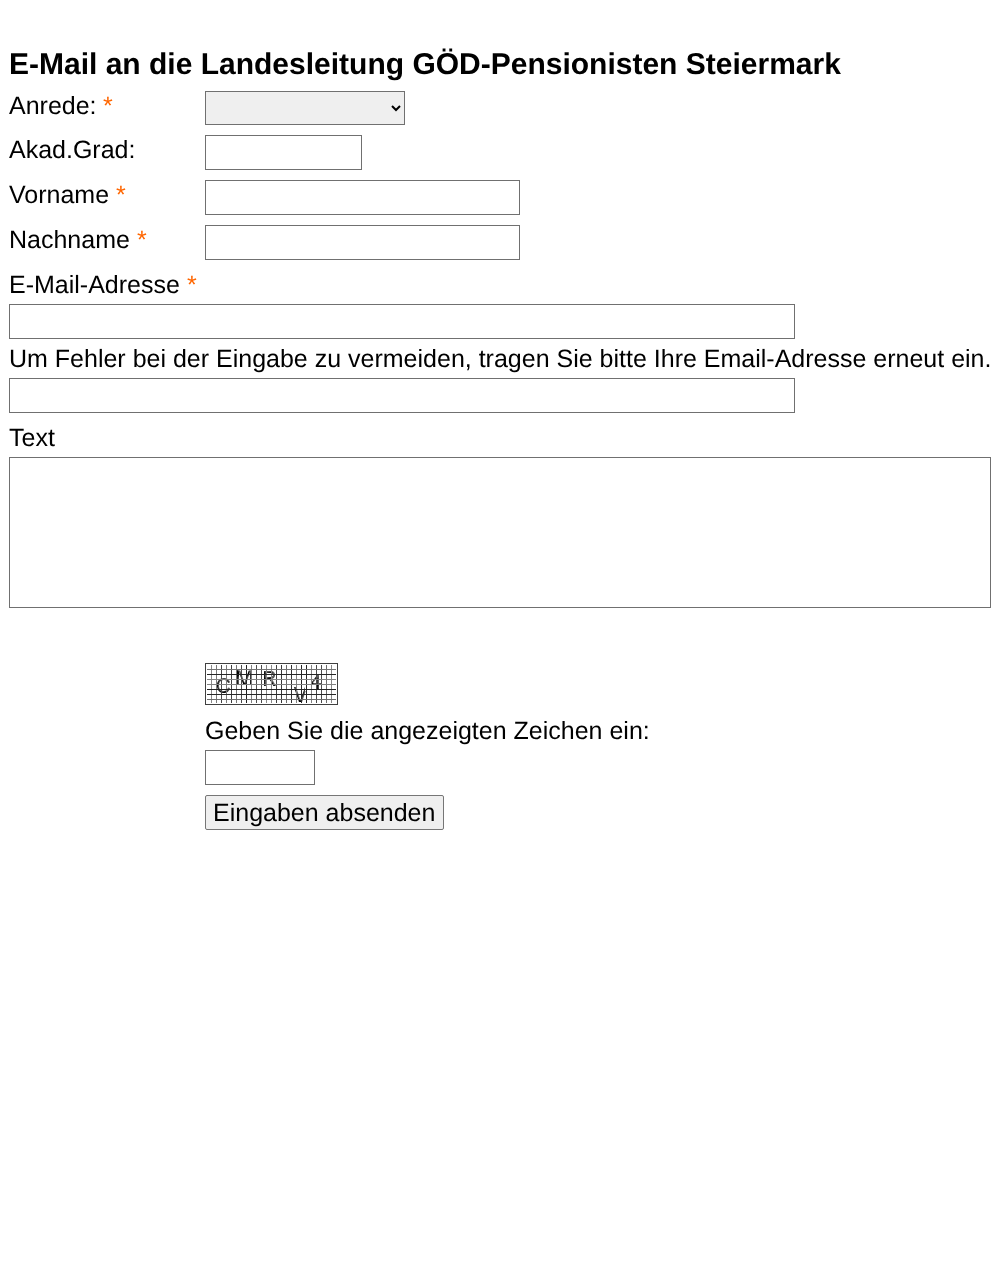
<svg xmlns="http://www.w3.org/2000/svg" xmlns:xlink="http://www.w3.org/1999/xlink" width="1000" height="1265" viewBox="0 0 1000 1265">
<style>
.cls-1{font:bold 30px Liberation Sans;fill:#000000}
.cls-2{font:25px Liberation Sans;fill:#000000}
.cls-3{font:25px Liberation Sans;fill:#ff6600}
</style>
<rect width="100%" height="100%" fill="#ffffff"/>
<rect fill="#efefef" stroke="#707070" x="205.5" y="91.5" width="199" height="33"/>
<path fill="none" stroke="#000000" stroke-width="2" d="M392 106L396 110L400 106"/>
<rect fill="none" stroke="#707070" x="205.5" y="135.5" width="156" height="34"/>
<rect fill="none" stroke="#707070" x="205.5" y="180.5" width="314" height="34"/>
<rect fill="none" stroke="#707070" x="205.5" y="225.5" width="314" height="34"/>
<rect fill="none" stroke="#707070" x="9.5" y="304.5" width="785" height="34"/>
<rect fill="none" stroke="#707070" x="9.5" y="378.5" width="785" height="34"/>
<rect fill="none" stroke="#707070" x="9.5" y="457.5" width="981" height="150"/>
<image xlink:href="image0.png" x="205" y="663" width="133" height="42"/>
<rect fill="none" stroke="#707070" x="205.5" y="750.5" width="109" height="34"/>
<rect fill="#efefef" stroke="#767676" x="205.5" y="795.5" width="238" height="34" rx="1.5"/>
<text class="cls-1" x="9" y="74">E-Mail an die Landesleitung GÖD-Pensionisten Steiermark</text>
<text class="cls-2" x="9" y="114">Anrede:</text>
<text class="cls-3" x="103" y="114">*</text>
<text class="cls-2"><tspan x="9" y="158">Akad.Grad:</tspan><tspan x="9" y="203">Vorname</tspan></text>
<text class="cls-3" x="116" y="203">*</text>
<text class="cls-2" x="9" y="248">Nachname</text>
<text class="cls-3" x="137" y="248">*</text>
<text class="cls-2" x="9" y="293">E-Mail-Adresse</text>
<text class="cls-3" x="187" y="293">*</text>
<text class="cls-2" x="9" y="367">Um Fehler bei der Eingabe zu vermeiden, tragen Sie bitte Ihre Email-Adresse erneut ein.</text>
<text class="cls-2" x="9" y="446">Text</text>
<text class="cls-2" x="205" y="739">Geben Sie die angezeigten Zeichen ein:</text>
<text class="cls-2" x="213" y="821">Eingaben absenden</text>
</svg>
